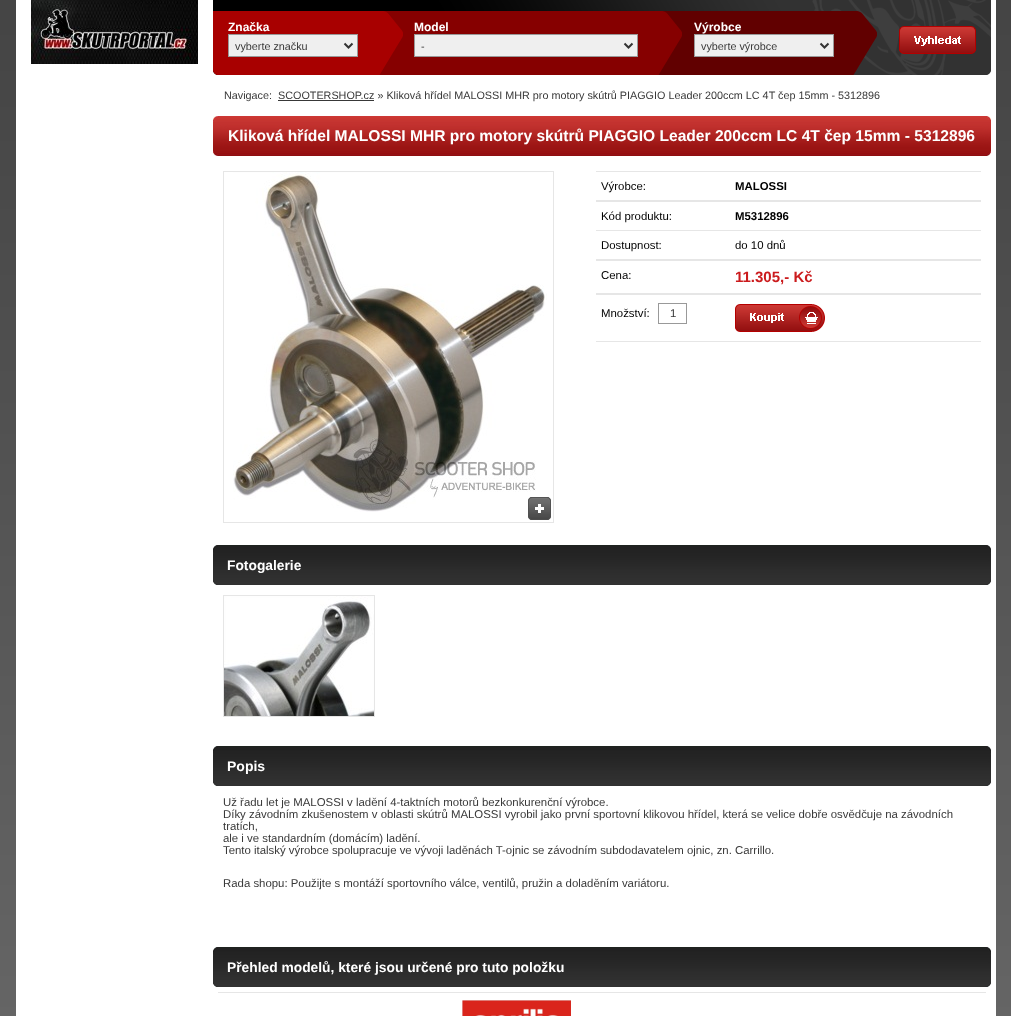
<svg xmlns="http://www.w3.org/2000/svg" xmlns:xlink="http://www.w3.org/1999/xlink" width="1011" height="1016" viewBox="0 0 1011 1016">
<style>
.cls-1{font:bold 12px Liberation Sans;fill:#ffffff}
.cls-2{font:10.8px Liberation Sans;fill:#383838}
.cls-3{font:bold 15.6px Liberation Sans;fill:#ffffff}
.cls-4{font:11.4px Liberation Sans;fill:#000000}
.cls-5{font:bold 11.4px Liberation Sans;fill:#000000}
.cls-6{font:bold 15px Liberation Sans;fill:#cb1b1d}
.cls-7{font:11.4px Liberation Sans;fill:#383838}
.cls-8{font:bold 13.8px Liberation Sans;fill:#ffffff}
.cls-9{font:bold 14px Liberation Sans;fill:#ffffff}
</style>
<rect width="100%" height="100%" fill="#ffffff"/>
<image xlink:href="image0.png" x="0" y="0" width="1011" height="1016"/>
<rect fill="#ffffff" x="16" y="0" width="980" height="1016"/>
<image xlink:href="image1.png" x="31" y="0" width="167" height="64"/>
<image xlink:href="image2.png" x="213" y="0" width="778" height="75"/>
<rect fill="#efefef" stroke="#999999" x="228.5" y="34.5" width="129" height="22"/>
<path fill="none" stroke="#333333" stroke-width="2" d="M344.5 43.5L348.5 47.5L352.5 43.5"/>
<rect fill="#efefef" stroke="#999999" x="414.5" y="34.5" width="223" height="22"/>
<path fill="none" stroke="#333333" stroke-width="2" d="M624.5 43.5L628.5 47.5L632.5 43.5"/>
<rect fill="#efefef" stroke="#999999" x="694.5" y="34.5" width="139" height="22"/>
<path fill="none" stroke="#333333" stroke-width="2" d="M820.5 43.5L824.5 47.5L828.5 43.5"/>
<image xlink:href="image3.png" x="899" y="26" width="77" height="28"/>
<rect fill="#383838" x="278" y="100" width="96" height="1"/>
<image xlink:href="image4.png" x="213" y="116" width="778" height="40"/>
<rect fill="none" stroke="#e6e6e6" x="223.5" y="171.5" width="330" height="351"/>
<image xlink:href="image5.png" x="233" y="172" width="314" height="340"/>
<image xlink:href="image6.png" x="528" y="497" width="23" height="23"/>
<rect fill="#e6e6e6" x="596" y="171" width="385" height="1"/>
<rect fill="#e6e6e6" x="596" y="200" width="385" height="1"/>
<rect fill="#e6e6e6" x="596" y="201" width="385" height="1"/>
<rect fill="#e6e6e6" x="596" y="230" width="385" height="1"/>
<rect fill="#e6e6e6" x="596" y="259" width="385" height="1"/>
<rect fill="#e6e6e6" x="596" y="260" width="385" height="1"/>
<rect fill="#e6e6e6" x="596" y="293" width="385" height="1"/>
<rect fill="#e6e6e6" x="596" y="294" width="385" height="1"/>
<rect fill="#e6e6e6" x="596" y="341" width="385" height="1"/>
<rect fill="none" stroke="#999999" x="658.5" y="303.5" width="28" height="20"/>
<image xlink:href="image7.png" x="735" y="304" width="90" height="28"/>
<image xlink:href="image8.png" x="213" y="545" width="778" height="40"/>
<rect fill="none" stroke="#e6e6e6" x="223.5" y="595.5" width="151" height="121"/>
<image xlink:href="image9.png" x="224" y="596" width="150" height="120"/>
<image xlink:href="image8.png" x="213" y="746" width="778" height="40"/>
<image xlink:href="image8.png" x="213" y="947" width="778" height="40"/>
<rect fill="#e6e6e6" x="218" y="992" width="768" height="1"/>
<image xlink:href="image10.png" x="462" y="1000" width="109" height="16"/>
<text class="cls-1" x="228" y="31">Značka</text>
<text class="cls-2" x="235" y="50">vyberte značku</text>
<text class="cls-1" x="414" y="31">Model</text>
<text class="cls-2" x="421" y="50">-</text>
<text class="cls-1" x="694" y="31">Výrobce</text>
<text class="cls-2" x="701" y="50">vyberte výrobce</text>
<text class="cls-2" x="224" y="99">Navigace:</text>
<text class="cls-2" x="278" y="99">SCOOTERSHOP.cz » Kliková hřídel MALOSSI MHR pro motory skútrů PIAGGIO Leader 200ccm LC 4T čep 15mm - 5312896</text>
<text class="cls-3" x="228" y="141">Kliková hřídel MALOSSI MHR pro motory skútrů PIAGGIO Leader 200ccm LC 4T čep 15mm - 5312896</text>
<text class="cls-4" x="601" y="190">Výrobce:</text>
<text class="cls-5" x="735" y="190">MALOSSI</text>
<text class="cls-4" x="601" y="220">Kód produktu:</text>
<text class="cls-5" x="735" y="220">M5312896</text>
<text class="cls-4" x="601" y="249">Dostupnost:</text>
<text class="cls-4" x="735" y="249">do 10 dnů</text>
<text class="cls-4" x="601" y="279">Cena:</text>
<text class="cls-6" x="735" y="282">11.305,- Kč</text>
<text class="cls-4" x="601" y="317">Množství:</text>
<text class="cls-7" x="670" y="317">1</text>
<text class="cls-8" x="227" y="570">Fotogalerie</text>
<text class="cls-9" x="227" y="771">Popis</text>
<text class="cls-7"><tspan x="223" y="806">Už řadu let je MALOSSI v ladění 4-taktních motorů bezkonkurenční výrobce.</tspan><tspan x="223" y="818">Díky závodním zkušenostem v oblasti skútrů MALOSSI vyrobil jako první sportovní klikovou hřídel, která se velice dobře osvědčuje na závodních</tspan><tspan x="223" y="830">tratích,</tspan><tspan x="223" y="842">ale i ve standardním (domácím) ladění.</tspan><tspan x="223" y="854">Tento italský výrobce spolupracuje ve vývoji laděnách T-ojnic se závodním subdodavatelem ojnic, zn. Carrillo.</tspan></text>
<text class="cls-7" x="223" y="887">Rada shopu: Použijte s montáží sportovního válce, ventilů, pružin a doladěním variátoru.</text>
<text class="cls-8" x="227" y="972">Přehled modelů, které jsou určené pro tuto položku</text>
</svg>
